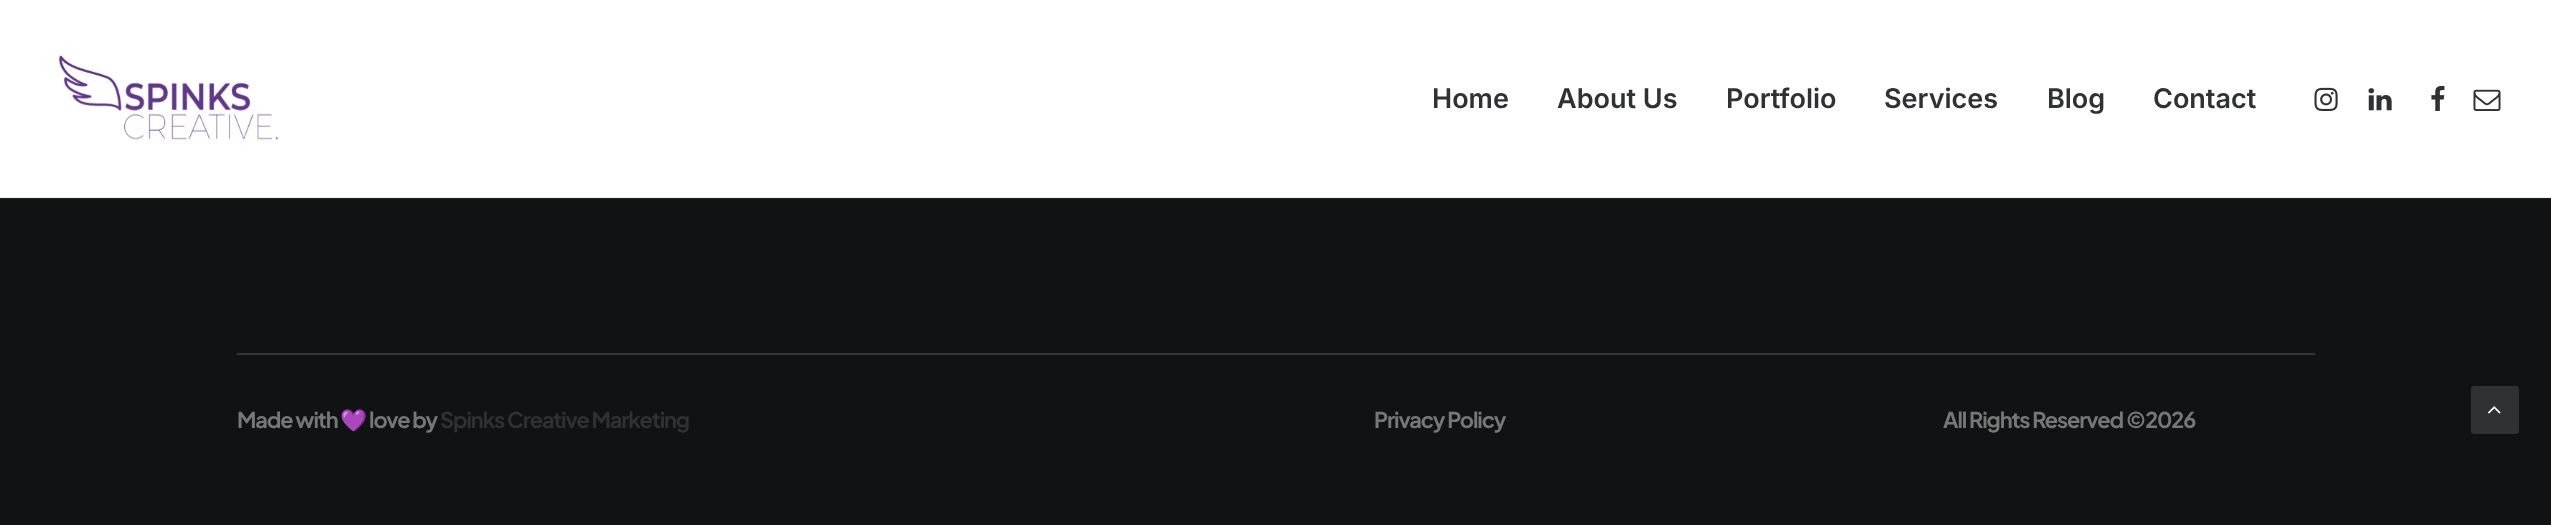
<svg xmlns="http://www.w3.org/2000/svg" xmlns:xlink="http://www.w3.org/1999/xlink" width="2551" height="525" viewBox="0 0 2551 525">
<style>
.cls-1{font:600 27px Inter;fill:#303133}
.cls-2{font:bold 21.75px Plus Jakarta Sans;letter-spacing:-1.1px;fill:#777777}
.cls-3{font:bold 21.75px Noto Color Emoji;letter-spacing:-1.1px;fill:#777777}
.cls-4{font:bold 21.75px Plus Jakarta Sans;letter-spacing:-1.1px;fill:#303133}
</style>
<rect width="100%" height="100%" fill="#101213"/>
<rect fill="#ffffff" x="0" y="0" width="2551" height="197"/>
<rect fill="#ebebeb" x="0" y="197" width="2551" height="1"/>
<image xlink:href="image0.png" x="59" y="55" width="220" height="85"/>
<image xlink:href="image1.png" x="2314" y="87" width="24" height="24"/>
<image xlink:href="image2.png" x="2368" y="88" width="24" height="23"/>
<image xlink:href="image3.png" x="2431" y="85" width="14" height="26"/>
<image xlink:href="image4.png" x="2473" y="89" width="28" height="22"/>
<rect fill="#1f2122" x="0" y="198" width="2551" height="1"/>
<rect fill="#343636" x="237" y="353" width="2078" height="2"/>
<rect fill="#303133" stroke="#303133" stroke-width="2" x="2472" y="387" width="46" height="46" rx="2"/>
<image xlink:href="image5.png" x="2488" y="406" width="13" height="8"/>
<text class="cls-1" x="1432" y="108">Home</text>
<text class="cls-1" x="1557" y="108">About Us</text>
<text class="cls-1" x="1726" y="108">Portfolio</text>
<text class="cls-1" x="1884" y="108">Services</text>
<text class="cls-1" x="2047" y="108">Blog</text>
<text class="cls-1" x="2153" y="108">Contact</text>
<text class="cls-2" x="237" y="428">Made with</text>
<text class="cls-3" x="340" y="428">💜</text>
<text class="cls-2" x="369" y="428">love by</text>
<text class="cls-4" x="440" y="428">Spinks Creative Marketing</text>
<text class="cls-2" x="1374" y="428">Privacy Policy</text>
<text class="cls-2" x="1943" y="428">All Rights Reserved ©2026</text>
</svg>
